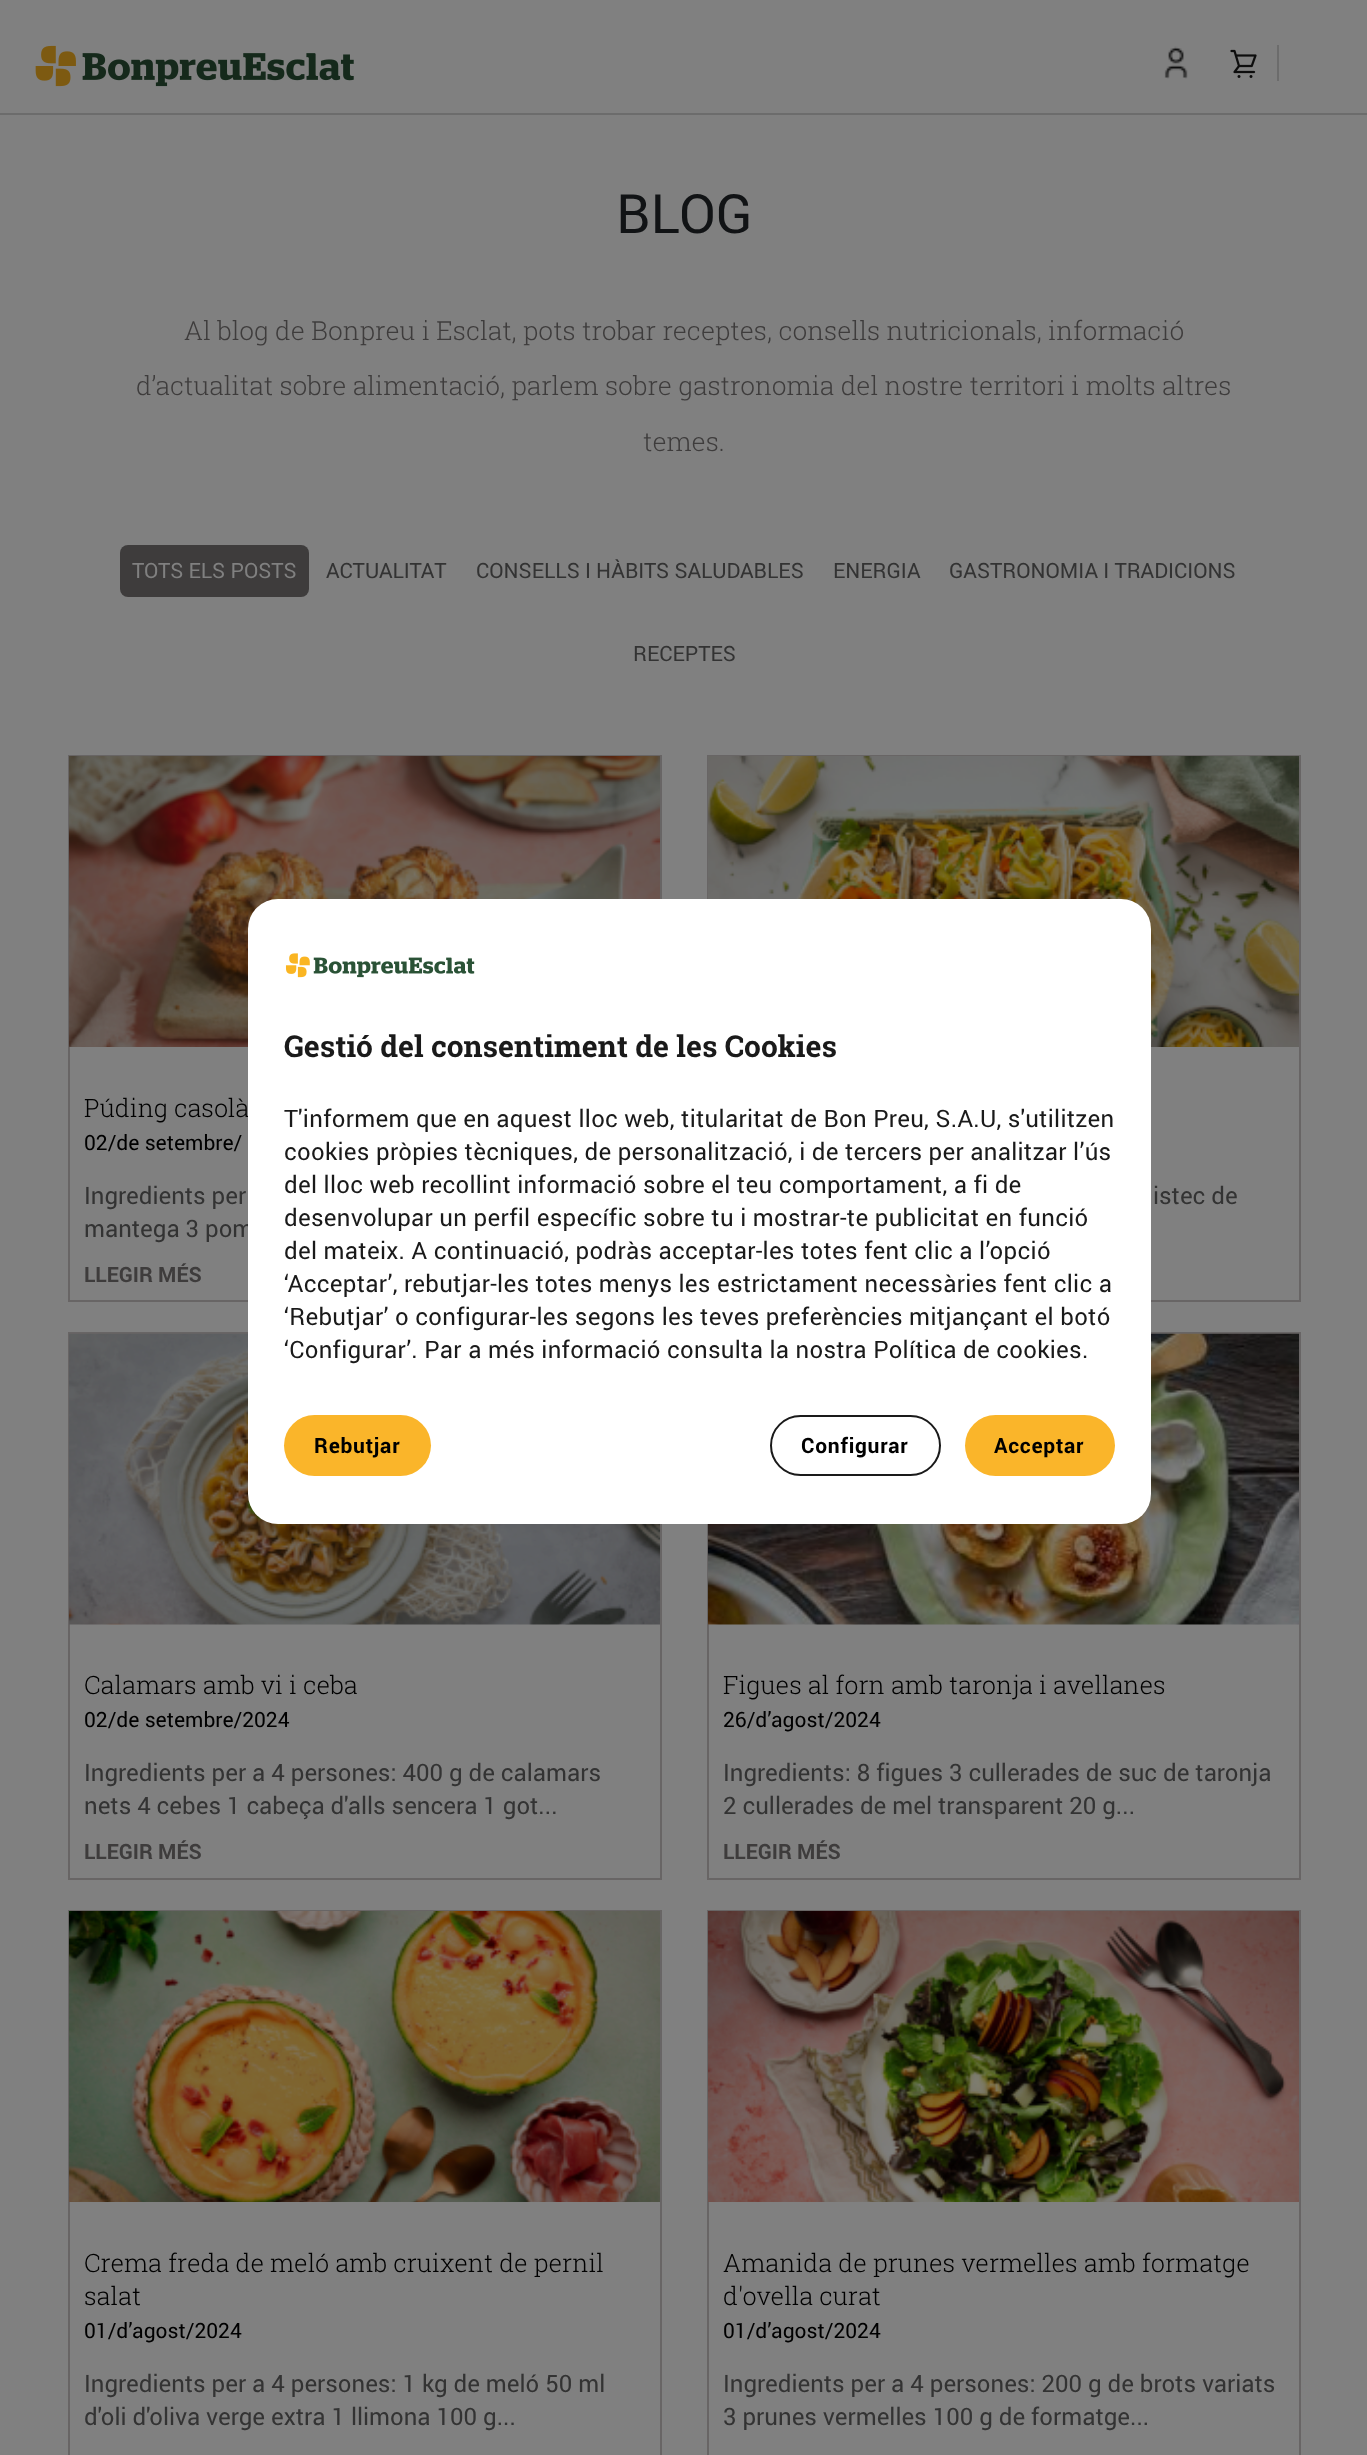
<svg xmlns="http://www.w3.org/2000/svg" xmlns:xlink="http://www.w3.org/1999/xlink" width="1367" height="2455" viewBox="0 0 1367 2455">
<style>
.cls-1{font:54px Roboto;fill:#111315}
.cls-2{font:300 26.25px Roboto Slab;fill:#3e3c3c}
.cls-3{font:21px Roboto;fill:#808080}
.cls-4{font:21px Roboto;fill:#333333}
.cls-5{font:300 25.2px Roboto Slab;fill:#000000}
.cls-6{font:21px Roboto;fill:#000000}
.cls-7{font:24px Roboto;fill:#333333}
.cls-8{font:bold 21px Roboto;fill:#3e3c3c}
.cls-9{font:bold 30px Roboto Slab;fill:#1a1a1a}
.cls-10{font:24px Roboto;letter-spacing:0.3px;fill:#1a1a1a}
.cls-11{font:bold 21px Roboto;letter-spacing:0.75px;fill:#000000}
</style>
<rect width="100%" height="100%" fill="#808080"/>
<rect fill="#6c6c6c" x="0" y="113" width="1367" height="2"/>
<image xlink:href="image0.png" x="35" y="45" width="319" height="42"/>
<image xlink:href="image1.png" x="1164" y="46" width="24" height="33"/>
<image xlink:href="image2.png" x="1230" y="49" width="27" height="29"/>
<rect fill="#6c6c6c" x="1277" y="45" width="2" height="36"/>
<rect fill="#3e3c3c" x="120" y="545" width="189" height="52" rx="8"/>
<rect fill="none" stroke="#686565" stroke-width="2" x="69" y="756" width="592" height="545"/>
<image xlink:href="image3.png" x="69" y="756" width="591" height="291"/>
<rect fill="none" stroke="#686565" stroke-width="2" x="708" y="756" width="592" height="545"/>
<image xlink:href="image4.png" x="708" y="756" width="591" height="291"/>
<rect fill="none" stroke="#686565" stroke-width="2" x="69" y="1333" width="592" height="546"/>
<image xlink:href="image5.png" x="69" y="1333" width="591" height="292"/>
<rect fill="none" stroke="#686565" stroke-width="2" x="708" y="1333" width="592" height="546"/>
<image xlink:href="image6.png" x="708" y="1333" width="591" height="292"/>
<rect fill="none" stroke="#686565" stroke-width="2" x="69" y="1911" width="592" height="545"/>
<image xlink:href="image7.png" x="69" y="1911" width="591" height="291"/>
<rect fill="none" stroke="#686565" stroke-width="2" x="708" y="1911" width="592" height="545"/>
<image xlink:href="image8.png" x="708" y="1911" width="591" height="291"/>
<text class="cls-1" x="616" y="233">BLOG</text>
<text class="cls-2" x="184" y="340">Al blog de Bonpreu i Esclat, pots trobar receptes, consells nutricionals, informació</text>
<text class="cls-2" x="136" y="395">d’actualitat sobre alimentació, parlem sobre gastronomia del nostre territori i molts altres</text>
<text class="cls-2" x="643" y="451">temes.</text>
<text class="cls-3" x="132" y="578">TOTS ELS POSTS</text>
<text class="cls-4" x="326" y="578">ACTUALITAT</text>
<text class="cls-4" x="476" y="578">CONSELLS I HÀBITS SALUDABLES</text>
<text class="cls-4" x="833" y="578">ENERGIA</text>
<text class="cls-4" x="949" y="578">GASTRONOMIA I TRADICIONS</text>
<text class="cls-4" x="633" y="661">RECEPTES</text>
<text class="cls-5" x="84" y="1117">Púding casolà</text>
<text class="cls-6" x="84" y="1150">02/de setembre/</text>
<text class="cls-7"><tspan x="84" y="1204">Ingredients per</tspan><tspan x="84" y="1237">mantega 3 pom</tspan></text>
<text class="cls-8" x="84" y="1282">LLEGIR MÉS</text>
<text class="cls-7" x="1153" y="1204">istec de</text>
<text class="cls-5" x="84" y="1694">Calamars amb vi i ceba</text>
<text class="cls-6" x="84" y="1727">02/de setembre/2024</text>
<text class="cls-7"><tspan x="84" y="1781">Ingredients per a 4 persones: 400 g de calamars</tspan><tspan x="84" y="1814">nets 4 cebes 1 cabeça d'alls sencera 1 got...</tspan></text>
<text class="cls-8" x="84" y="1859">LLEGIR MÉS</text>
<text class="cls-5" x="723" y="1694">Figues al forn amb taronja i avellanes</text>
<text class="cls-6" x="723" y="1727">26/d’agost/2024</text>
<text class="cls-7"><tspan x="723" y="1781">Ingredients: 8 figues 3 cullerades de suc de taronja</tspan><tspan x="723" y="1814">2 cullerades de mel transparent 20 g...</tspan></text>
<text class="cls-8" x="723" y="1859">LLEGIR MÉS</text>
<text class="cls-5"><tspan x="84" y="2272">Crema freda de meló amb cruixent de pernil</tspan><tspan x="84" y="2305">salat</tspan></text>
<text class="cls-6" x="84" y="2338">01/d’agost/2024</text>
<text class="cls-7"><tspan x="84" y="2392">Ingredients per a 4 persones: 1 kg de meló 50 ml</tspan><tspan x="84" y="2425">d'oli d'oliva verge extra 1 llimona 100 g...</tspan></text>
<text class="cls-5"><tspan x="723" y="2272">Amanida de prunes vermelles amb formatge</tspan><tspan x="723" y="2305">d'ovella curat</tspan></text>
<text class="cls-6" x="723" y="2338">01/d’agost/2024</text>
<text class="cls-7"><tspan x="723" y="2392">Ingredients per a 4 persones: 200 g de brots variats</tspan><tspan x="723" y="2425">3 prunes vermelles 100 g de formatge...</tspan></text>
<rect fill="#ffffff" x="248" y="899" width="903" height="625" rx="30"/>
<image xlink:href="image9.png" x="285" y="953" width="190" height="25"/>
<text class="cls-9" x="284" y="1057">Gestió del consentiment de les Cookies</text>
<text class="cls-10"><tspan x="284" y="1127">T'informem que en aquest lloc web, titularitat de Bon Preu, S.A.U, s'utilitzen</tspan><tspan x="284" y="1160">cookies pròpies tècniques, de personalització, i de tercers per analitzar l’ús</tspan><tspan x="284" y="1193">del lloc web recollint informació sobre el teu comportament, a fi de</tspan><tspan x="284" y="1226">desenvolupar un perfil específic sobre tu i mostrar-te publicitat en funció</tspan><tspan x="284" y="1259">del mateix. A continuació, podràs acceptar-les totes fent clic a l’opció</tspan><tspan x="284" y="1292">‘Acceptar’, rebutjar-les totes menys les estrictament necessàries fent clic a</tspan><tspan x="284" y="1325">‘Rebutjar’ o configurar-les segons les teves preferències mitjançant el botó</tspan><tspan x="284" y="1358">‘Configurar’. Par a més informació consulta la nostra Política de cookies.</tspan></text>
<rect fill="#fab52a" x="284" y="1415" width="147" height="61" rx="30.5"/>
<text class="cls-11" x="314" y="1453">Rebutjar</text>
<rect fill="none" stroke="#1a1a1a" stroke-width="2" x="771" y="1416" width="169" height="59" rx="29.5"/>
<text class="cls-11" x="801" y="1453">Configurar</text>
<rect fill="#fab52a" x="965" y="1415" width="150" height="61" rx="30.5"/>
<text class="cls-11" x="994" y="1453">Acceptar</text>
</svg>
